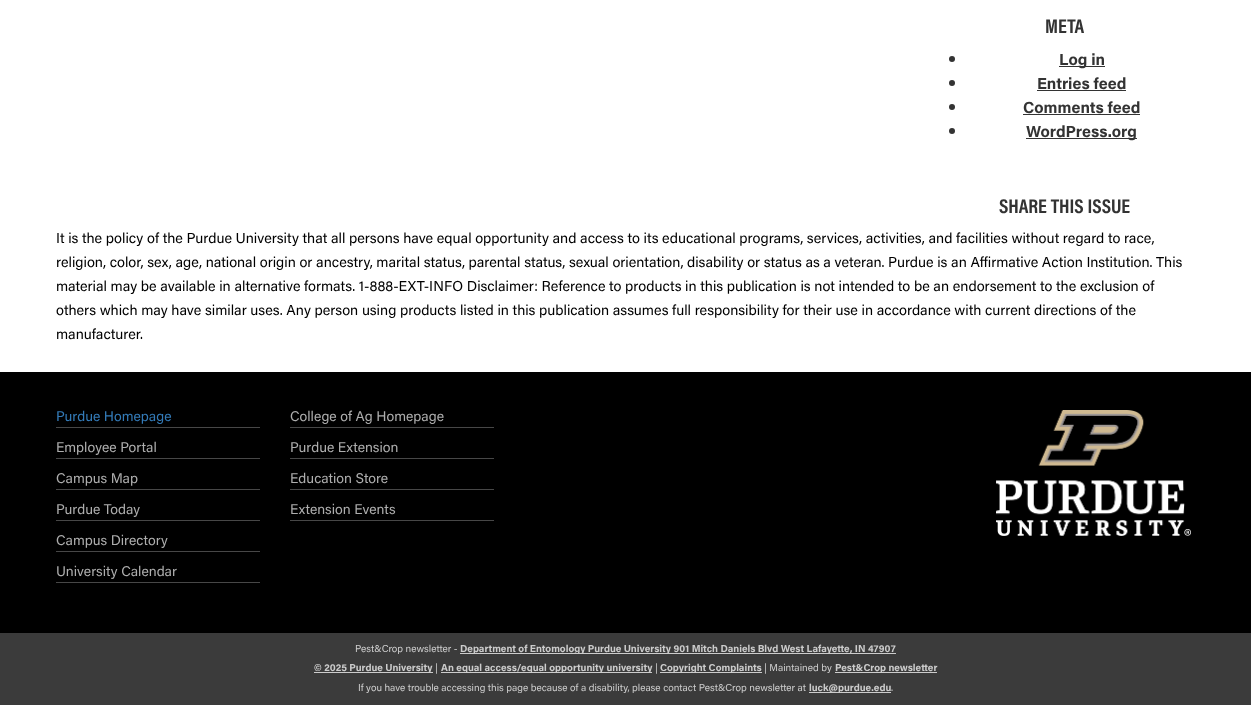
<svg xmlns="http://www.w3.org/2000/svg" xmlns:xlink="http://www.w3.org/1999/xlink" width="1251" height="705" viewBox="0 0 1251 705">
<style>
.cls-1{font:bold 20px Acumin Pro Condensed;fill:#333333}
.cls-2{font:bold 16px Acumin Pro;fill:#333333}
.cls-3{font:14.4px Acumin Pro;fill:#000000}
.cls-4{font:14px Acumin Pro;fill:#337ab7}
.cls-5{font:14px Acumin Pro;fill:#adadad}
.cls-6{font:10px Acumin Pro;fill:#cccccc}
.cls-7{font:bold 10px Acumin Pro;fill:#cccccc}
</style>
<rect width="100%" height="100%" fill="#ffffff"/>
<circle fill="#333333" cx="952" cy="59" r="3"/>
<rect fill="#333333" x="1059" y="66" width="46" height="1"/>
<circle fill="#333333" cx="952" cy="83" r="3"/>
<rect fill="#333333" x="1037" y="90" width="89" height="1"/>
<circle fill="#333333" cx="952" cy="107" r="3"/>
<rect fill="#333333" x="1023" y="114" width="117" height="1"/>
<circle fill="#333333" cx="952" cy="131" r="3"/>
<rect fill="#333333" x="1026" y="138" width="111" height="1"/>
<rect fill="#000000" x="0" y="372" width="1251" height="261"/>
<rect fill="#474747" x="56" y="427" width="204" height="1"/>
<rect fill="#474747" x="56" y="458" width="204" height="1"/>
<rect fill="#474747" x="56" y="489" width="204" height="1"/>
<rect fill="#474747" x="56" y="520" width="204" height="1"/>
<rect fill="#474747" x="56" y="551" width="204" height="1"/>
<rect fill="#474747" x="56" y="582" width="204" height="1"/>
<rect fill="#474747" x="290" y="427" width="204" height="1"/>
<rect fill="#474747" x="290" y="458" width="204" height="1"/>
<rect fill="#474747" x="290" y="489" width="204" height="1"/>
<rect fill="#474747" x="290" y="520" width="204" height="1"/>
<image xlink:href="image0.png" x="996" y="410" width="195" height="126"/>
<rect fill="#3b3b3b" x="0" y="633" width="1251" height="72"/>
<rect fill="#cccccc" x="460" y="653" width="436" height="1"/>
<rect fill="#cccccc" x="314" y="672" width="119" height="1"/>
<rect fill="#cccccc" x="441" y="672" width="211" height="1"/>
<rect fill="#cccccc" x="660" y="672" width="102" height="1"/>
<rect fill="#cccccc" x="835" y="672" width="102" height="1"/>
<rect fill="#cccccc" x="809" y="692" width="82" height="1"/>
<text class="cls-1" x="1045" y="33">META</text>
<text class="cls-2" x="1059" y="65">Log in</text>
<text class="cls-2" x="1037" y="89">Entries feed</text>
<text class="cls-2" x="1023" y="113">Comments feed</text>
<text class="cls-2" x="1026" y="137">WordPress.org</text>
<text class="cls-1" x="999" y="213">SHARE THIS ISSUE</text>
<text class="cls-3"><tspan x="56" y="243">It is the policy of the Purdue University that all persons have equal opportunity and access to its educational programs, services, activities, and facilities without regard to race,</tspan><tspan x="56" y="267">religion, color, sex, age, national origin or ancestry, marital status, parental status, sexual orientation, disability or status as a veteran. Purdue is an Affirmative Action Institution. This</tspan><tspan x="56" y="291">material may be available in alternative formats. 1-888-EXT-INFO Disclaimer: Reference to products in this publication is not intended to be an endorsement to the exclusion of</tspan><tspan x="56" y="315">others which may have similar uses. Any person using products listed in this publication assumes full responsibility for their use in accordance with current directions of the</tspan><tspan x="56" y="339">manufacturer.</tspan></text>
<text class="cls-4" x="56" y="421">Purdue Homepage</text>
<text class="cls-5" x="56" y="452">Employee Portal</text>
<text class="cls-5" x="56" y="483">Campus Map</text>
<text class="cls-5" x="56" y="514">Purdue Today</text>
<text class="cls-5" x="56" y="545">Campus Directory</text>
<text class="cls-5" x="56" y="576">University Calendar</text>
<text class="cls-5" x="290" y="421">College of Ag Homepage</text>
<text class="cls-5" x="290" y="452">Purdue Extension</text>
<text class="cls-5" x="290" y="483">Education Store</text>
<text class="cls-5" x="290" y="514">Extension Events</text>
<text class="cls-6" x="355" y="652">Pest&amp;Crop newsletter -</text>
<text class="cls-7" x="460" y="652">Department of Entomology Purdue University 901 Mitch Daniels Blvd West Lafayette, IN 47907</text>
<text class="cls-7" x="314" y="671">© 2025 Purdue University</text>
<text class="cls-6" x="435" y="671">|</text>
<text class="cls-7" x="441" y="671">An equal access/equal opportunity university</text>
<text class="cls-6" x="655" y="671">|</text>
<text class="cls-7" x="660" y="671">Copyright Complaints</text>
<text class="cls-6" x="764" y="671">| Maintained by</text>
<text class="cls-7" x="835" y="671">Pest&amp;Crop newsletter</text>
<text class="cls-6" x="358" y="691">If you have trouble accessing this page because of a disability, please contact Pest&amp;Crop newsletter at</text>
<text class="cls-7" x="809" y="691">luck@purdue.edu</text>
<text class="cls-6" x="891" y="691">.</text>
</svg>
